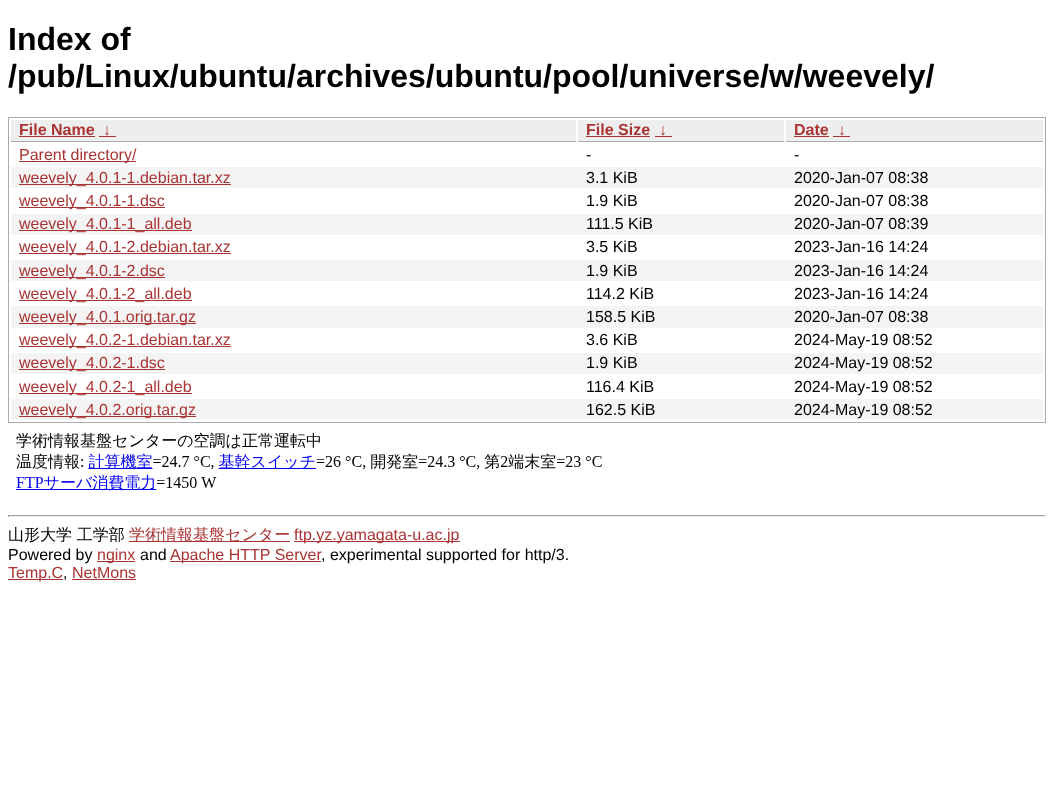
<svg xmlns="http://www.w3.org/2000/svg" xmlns:xlink="http://www.w3.org/1999/xlink" width="1054" height="796" viewBox="0 0 1054 796">
<style>
.cls-1{font:bold 32px Liberation Sans;fill:#000000}
.cls-2{font:bold 16px Liberation Sans;fill:#aa3333}
.cls-3{font:16px Liberation Sans;fill:#aa3333}
.cls-4{font:16px Liberation Sans;fill:#000000}
.cls-5{font:500 16px WenQuanYi Zen Hei;fill:#000000}
.cls-6{font:500 16px WenQuanYi Zen Hei;fill:#aa3333}
</style>
<rect width="100%" height="100%" fill="#ffffff"/>
<rect fill="none" stroke="#aaaaaa" x="8.5" y="117.5" width="1037" height="305"/>
<rect fill="#eeeeee" x="11" y="120" width="565" height="21"/>
<rect fill="#aaaaaa" x="11" y="141" width="565" height="1"/>
<rect fill="#aa3333" x="19" y="136" width="76" height="1"/>
<rect fill="#aa3333" x="99" y="136" width="17" height="1"/>
<rect fill="#eeeeee" x="578" y="120" width="206" height="21"/>
<rect fill="#aaaaaa" x="578" y="141" width="206" height="1"/>
<rect fill="#aa3333" x="586" y="136" width="64" height="1"/>
<rect fill="#aa3333" x="655" y="136" width="17" height="1"/>
<rect fill="#eeeeee" x="786" y="120" width="257" height="21"/>
<rect fill="#aaaaaa" x="786" y="141" width="257" height="1"/>
<rect fill="#aa3333" x="794" y="136" width="35" height="1"/>
<rect fill="#aa3333" x="833" y="136" width="17" height="1"/>
<rect fill="#aa3333" x="19" y="161" width="117" height="1"/>
<rect fill="#f4f4f4" x="11" y="167" width="1032" height="21"/>
<rect fill="#aa3333" x="19" y="184" width="212" height="1"/>
<rect fill="#aa3333" x="19" y="207" width="146" height="1"/>
<rect fill="#f4f4f4" x="11" y="214" width="1032" height="21"/>
<rect fill="#aa3333" x="19" y="230" width="173" height="1"/>
<rect fill="#aa3333" x="19" y="253" width="212" height="1"/>
<rect fill="#f4f4f4" x="11" y="260" width="1032" height="21"/>
<rect fill="#aa3333" x="19" y="277" width="146" height="1"/>
<rect fill="#aa3333" x="19" y="300" width="173" height="1"/>
<rect fill="#f4f4f4" x="11" y="306" width="1032" height="22"/>
<rect fill="#aa3333" x="19" y="323" width="177" height="1"/>
<rect fill="#aa3333" x="19" y="346" width="212" height="1"/>
<rect fill="#f4f4f4" x="11" y="353" width="1032" height="21"/>
<rect fill="#aa3333" x="19" y="369" width="146" height="1"/>
<rect fill="#aa3333" x="19" y="393" width="173" height="1"/>
<rect fill="#f4f4f4" x="11" y="399" width="1032" height="21"/>
<rect fill="#aa3333" x="19" y="416" width="177" height="1"/>
<image xlink:href="image0.png" x="16" y="432" width="586" height="59"/>
<rect fill="#9f9f9f" x="8" y="515" width="1038" height="1"/>
<rect fill="#eeeeee" x="1045" y="515" width="1" height="2"/>
<rect fill="#eeeeee" x="8" y="516" width="1038" height="1"/>
<rect fill="#9f9f9f" x="8" y="515" width="1" height="2"/>
<rect fill="#aa3333" x="129" y="541" width="161" height="1"/>
<rect fill="#aa3333" x="294" y="541" width="166" height="1"/>
<rect fill="#aa3333" x="97" y="561" width="38" height="1"/>
<rect fill="#aa3333" x="170" y="561" width="151" height="1"/>
<rect fill="#aa3333" x="8" y="579" width="55" height="1"/>
<rect fill="#aa3333" x="72" y="579" width="64" height="1"/>
<text class="cls-1"><tspan x="8" y="50">Index of</tspan><tspan x="8" y="87">/pub/Linux/ubuntu/archives/ubuntu/pool/universe/w/weevely/</tspan></text>
<text class="cls-2" x="19" y="135">File Name</text>
<text class="cls-2" x="103" y="135">↓</text>
<text class="cls-2" x="586" y="135">File Size</text>
<text class="cls-2" x="659" y="135">↓</text>
<text class="cls-2" x="794" y="135">Date</text>
<text class="cls-2" x="838" y="135">↓</text>
<text class="cls-3" x="19" y="160">Parent directory/</text>
<text class="cls-4" x="586" y="160">-</text>
<text class="cls-4" x="794" y="160">-</text>
<text class="cls-3" x="19" y="183">weevely_4.0.1-1.debian.tar.xz</text>
<text class="cls-4" x="586" y="183">3.1 KiB</text>
<text class="cls-4" x="794" y="183">2020-Jan-07 08:38</text>
<text class="cls-3" x="19" y="206">weevely_4.0.1-1.dsc</text>
<text class="cls-4" x="586" y="206">1.9 KiB</text>
<text class="cls-4" x="794" y="206">2020-Jan-07 08:38</text>
<text class="cls-3" x="19" y="229">weevely_4.0.1-1_all.deb</text>
<text class="cls-4" x="586" y="229">111.5 KiB</text>
<text class="cls-4" x="794" y="229">2020-Jan-07 08:39</text>
<text class="cls-3" x="19" y="252">weevely_4.0.1-2.debian.tar.xz</text>
<text class="cls-4" x="586" y="252">3.5 KiB</text>
<text class="cls-4" x="794" y="252">2023-Jan-16 14:24</text>
<text class="cls-3" x="19" y="276">weevely_4.0.1-2.dsc</text>
<text class="cls-4" x="586" y="276">1.9 KiB</text>
<text class="cls-4" x="794" y="276">2023-Jan-16 14:24</text>
<text class="cls-3" x="19" y="299">weevely_4.0.1-2_all.deb</text>
<text class="cls-4" x="586" y="299">114.2 KiB</text>
<text class="cls-4" x="794" y="299">2023-Jan-16 14:24</text>
<text class="cls-3" x="19" y="322">weevely_4.0.1.orig.tar.gz</text>
<text class="cls-4" x="586" y="322">158.5 KiB</text>
<text class="cls-4" x="794" y="322">2020-Jan-07 08:38</text>
<text class="cls-3" x="19" y="345">weevely_4.0.2-1.debian.tar.xz</text>
<text class="cls-4" x="586" y="345">3.6 KiB</text>
<text class="cls-4" x="794" y="345">2024-May-19 08:52</text>
<text class="cls-3" x="19" y="368">weevely_4.0.2-1.dsc</text>
<text class="cls-4" x="586" y="368">1.9 KiB</text>
<text class="cls-4" x="794" y="368">2024-May-19 08:52</text>
<text class="cls-3" x="19" y="392">weevely_4.0.2-1_all.deb</text>
<text class="cls-4" x="586" y="392">116.4 KiB</text>
<text class="cls-4" x="794" y="392">2024-May-19 08:52</text>
<text class="cls-3" x="19" y="415">weevely_4.0.2.orig.tar.gz</text>
<text class="cls-4" x="586" y="415">162.5 KiB</text>
<text class="cls-4" x="794" y="415">2024-May-19 08:52</text>
<text class="cls-5" x="8" y="540">山形大学 工学部</text>
<text class="cls-6" x="129" y="540">学術情報基盤センター</text>
<text class="cls-3" x="294" y="540">ftp.yz.yamagata-u.ac.jp</text>
<text class="cls-4" x="8" y="560">Powered by</text>
<text class="cls-3" x="97" y="560">nginx</text>
<text class="cls-4" x="140" y="560">and</text>
<text class="cls-3" x="170" y="560">Apache HTTP Server</text>
<text class="cls-4" x="321" y="560">, experimental supported for http/3.</text>
<text class="cls-3" x="8" y="578">Temp.C</text>
<text class="cls-4" x="63" y="578">,</text>
<text class="cls-3" x="72" y="578">NetMons</text>
</svg>
